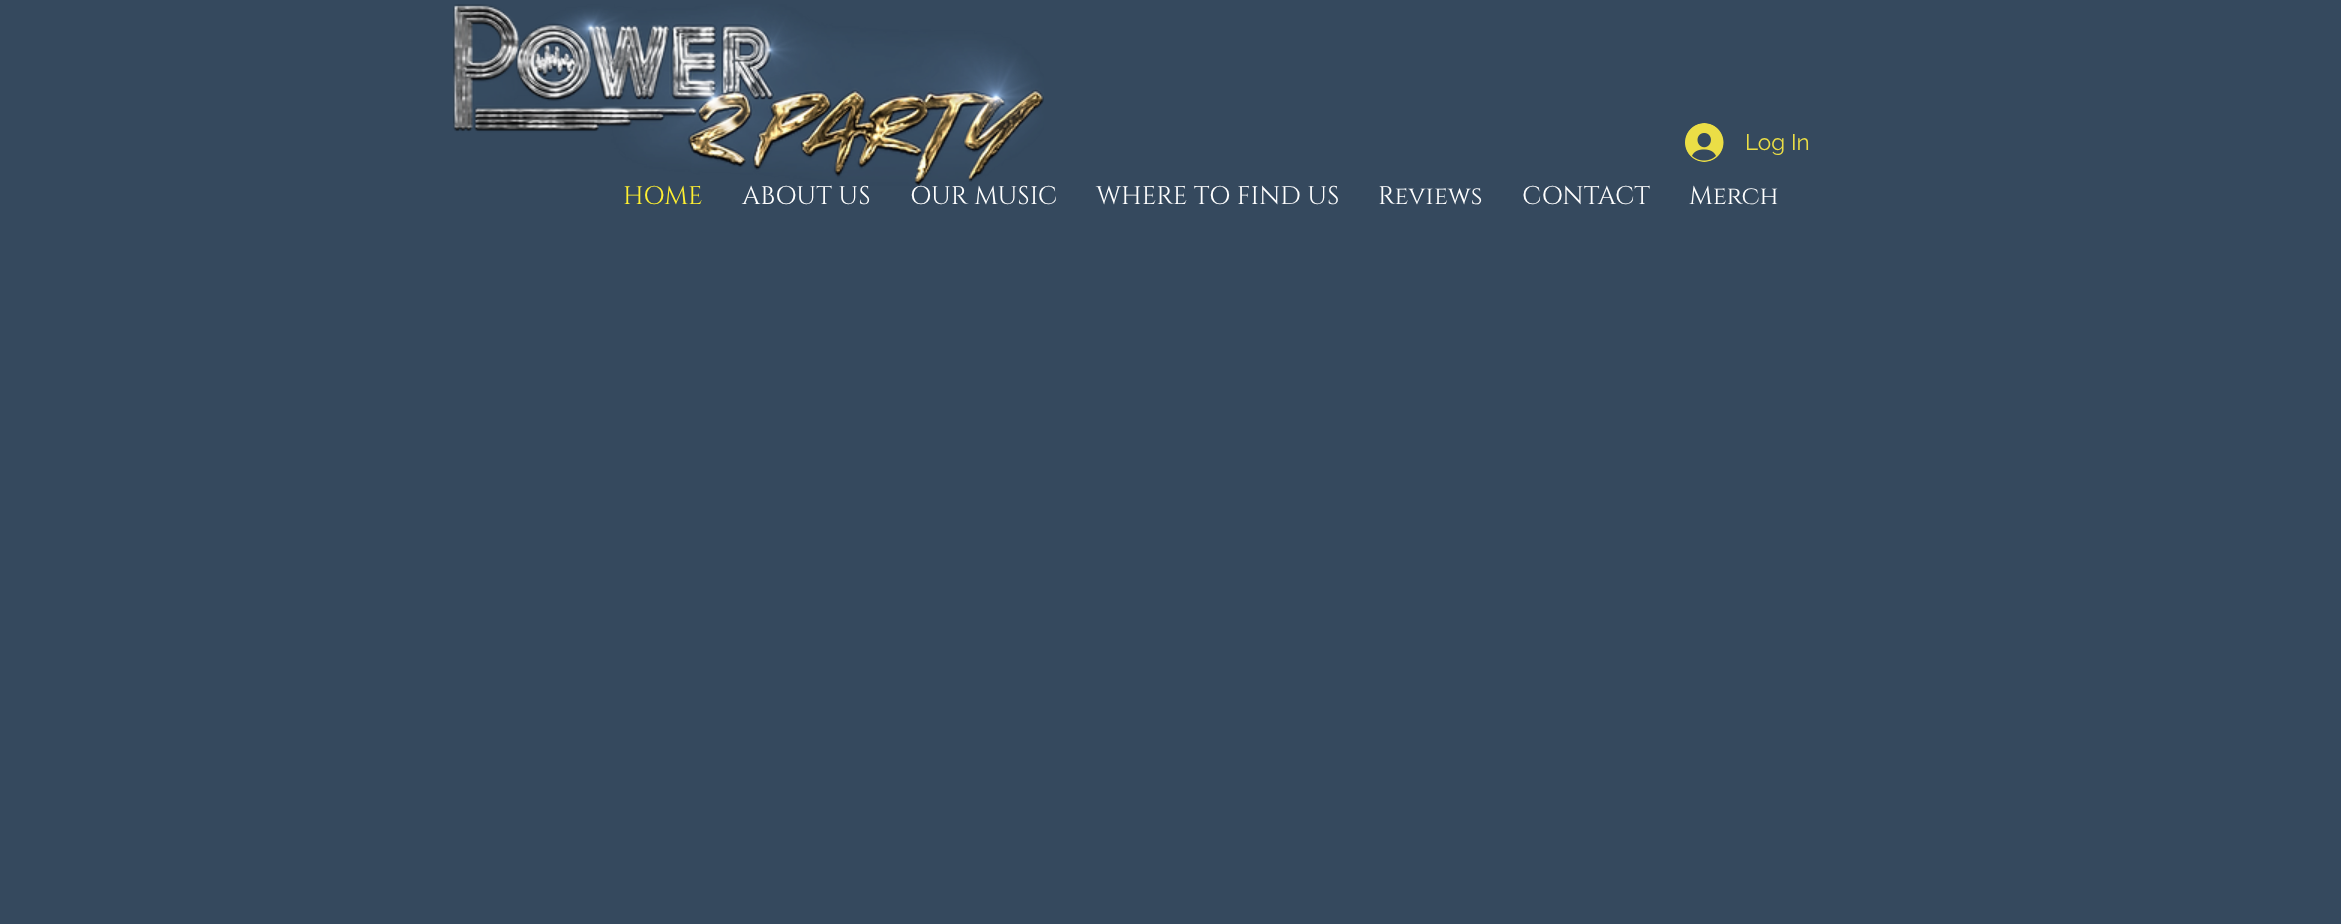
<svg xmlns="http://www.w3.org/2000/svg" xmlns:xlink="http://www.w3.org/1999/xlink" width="2341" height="924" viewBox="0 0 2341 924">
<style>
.cls-1{font:22.5px Raleway;fill:#ebde46}
.cls-2{font:25.5px Cinzel;fill:#fff031}
.cls-3{font:25.5px Cinzel;fill:#ffffff}
</style>
<rect width="100%" height="100%" fill="#35495e"/>
<image xlink:href="image1.png" x="1685" y="123" width="39" height="39"/>
<text class="cls-1" x="1745" y="150">Log In</text>
<text class="cls-2" x="623" y="204">HOME</text>
<text class="cls-3" x="742" y="204">ABOUT US</text>
<text class="cls-3" x="910" y="204">OUR MUSIC</text>
<image xlink:href="image0.png" x="453" y="4" width="591" height="182"/>
<text class="cls-3" x="1096" y="204">WHERE TO FIND US</text>
<text class="cls-3" x="1378" y="204">Reviews</text>
<text class="cls-3" x="1522" y="204">CONTACT</text>
<text class="cls-3" x="1689" y="204">Merch</text>
</svg>
